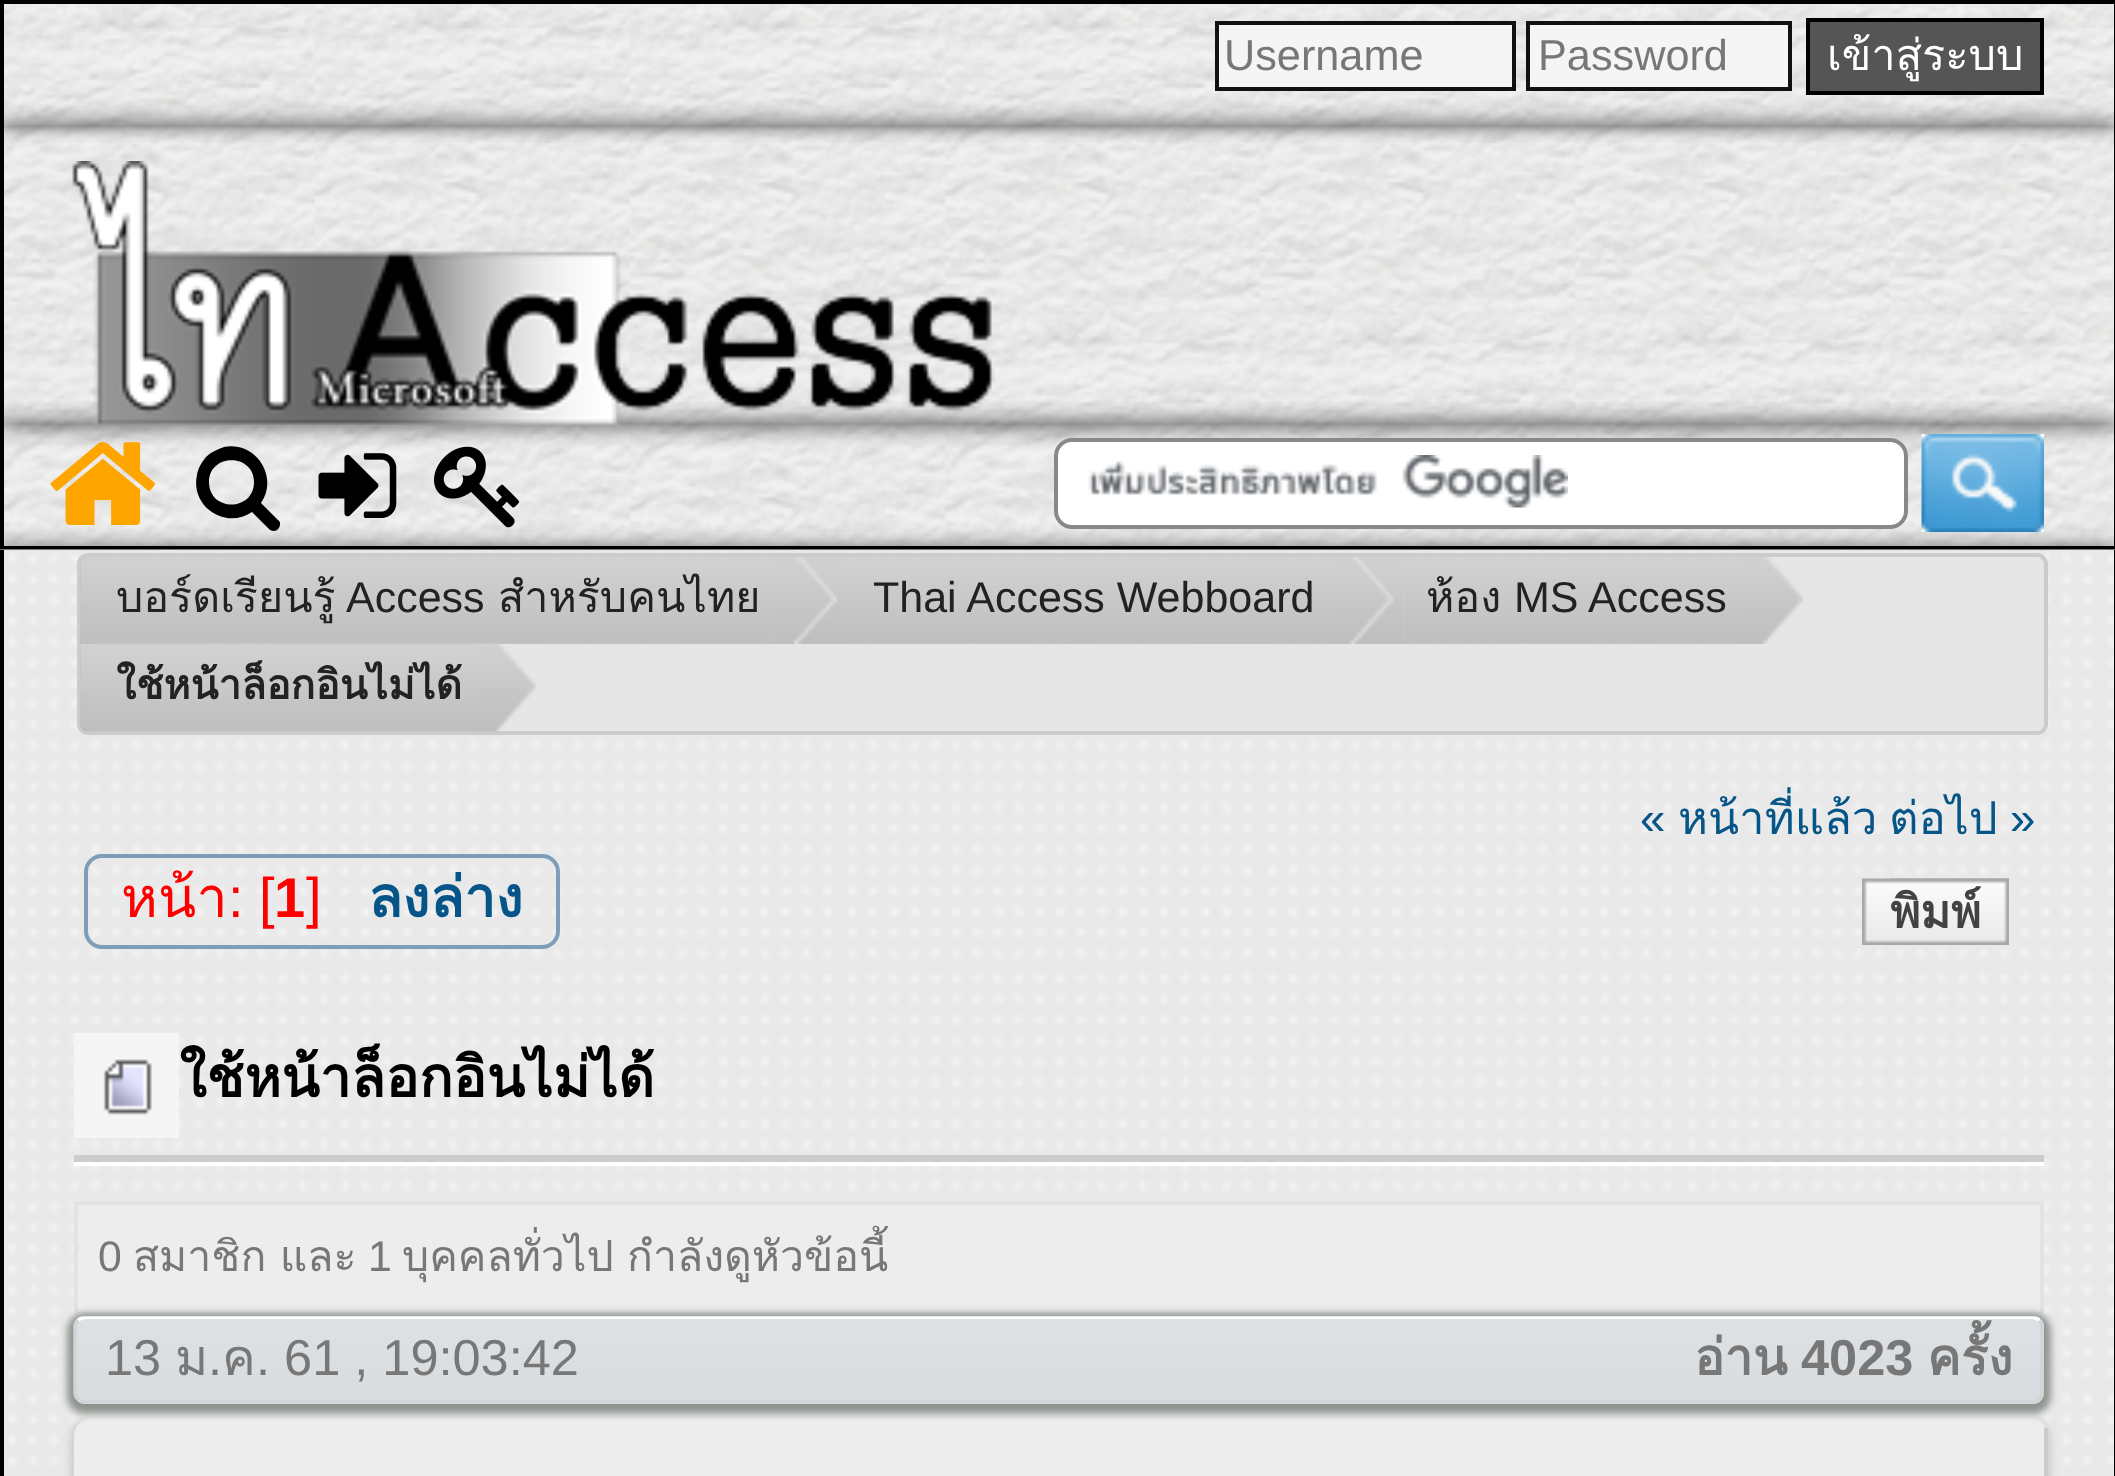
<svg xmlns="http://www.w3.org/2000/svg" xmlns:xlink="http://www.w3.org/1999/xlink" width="2115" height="1476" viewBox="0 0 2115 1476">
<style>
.cls-1{font:43.25px Liberation Sans;fill:#777777}
.cls-2{font:43.25px Loma;fill:#ffffff}
.cls-3{font:43px Loma;fill:#222222}
.cls-4{font:43px Liberation Sans;fill:#222222}
.cls-5{font:bold 40.75px Loma;fill:#222222}
.cls-6{font:45.5px Liberation Sans;fill:#065589}
.cls-7{font:45.5px Loma;fill:#065589}
.cls-8{font:56px Loma;fill:#ff0000}
.cls-9{font:56px Liberation Sans;fill:#ff0000}
.cls-10{font:bold 56px Liberation Sans;fill:#ff0000}
.cls-11{font:bold 56px Loma;fill:#065589}
.cls-12{font:bold 46px Loma;fill:#424242}
.cls-13{font:bold 56px Loma;fill:#000000}
.cls-14{font:42.8px Liberation Sans;fill:#777777}
.cls-15{font:42.8px Loma;fill:#777777}
.cls-16{font:50.5px Liberation Sans;fill:#777777}
.cls-17{font:50.5px Loma;fill:#777777}
.cls-18{font:bold 50.5px Loma;fill:#777777}
.cls-19{font:bold 50.5px Liberation Sans;fill:#777777}
</style>
<defs>
<clipPath id="clip1"><path d="M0 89H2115V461H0ZM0 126H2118V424H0Z" clip-rule="evenodd"/></clipPath>
<clipPath id="clip2"><rect x="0" y="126" width="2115" height="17"/></clipPath>
<clipPath id="clip3"><rect x="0" y="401" width="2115" height="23"/></clipPath>
<clipPath id="clip4"><rect x="74" y="1316" width="1970" height="88" rx="11"/></clipPath>
<linearGradient id="g1" gradientUnits="userSpaceOnUse" x1="1059" y1="1319" x2="1059" y2="1400"><stop offset="0" stop-color="#dee1e4"/><stop offset="1" stop-color="#d9dcde"/></linearGradient>
<linearGradient id="g2" gradientUnits="userSpaceOnUse" x1="1059" y1="1400" x2="1059" y2="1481"><stop offset="0" stop-color="#dee1e4"/><stop offset="1" stop-color="#d9dcde"/></linearGradient>
<clipPath id="clip5"><path d="M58 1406H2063V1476H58ZM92 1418H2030C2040 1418 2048 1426 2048 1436V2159C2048 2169 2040 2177 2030 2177H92C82 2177 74 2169 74 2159V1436C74 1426 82 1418 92 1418Z" clip-rule="evenodd"/></clipPath>
</defs>
<rect width="100%" height="100%" fill="#ffffff"/>
<image xlink:href="image0.png" x="4" y="4" width="2110" height="542"/>
<g clip-path="url(#clip1)">
<rect fill="#000000" fill-opacity="0.7" filter="blur(12px)" x="0" y="126" width="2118" height="298"/>
</g>
<rect fill="#000000" x="2114" y="126" width="1" height="298"/>
<rect fill="#000000" x="0" y="126" width="4" height="298"/>
<g clip-path="url(#clip2)">
<rect fill="#000000" fill-opacity="0.7" filter="blur(9px)" x="0" y="0" width="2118" height="126"/>
</g>
<rect fill="#000000" x="0" y="0" width="2115" height="4"/>
<rect fill="#000000" x="2114" y="0" width="1" height="126"/>
<rect fill="#000000" x="0" y="0" width="4" height="126"/>
<rect fill="#f5f5f5" stroke="#111111" stroke-width="4" x="1217" y="23" width="297" height="66"/>
<rect fill="#f5f5f5" stroke="#111111" stroke-width="4" x="1528" y="23" width="262" height="66"/>
<rect fill="#555555" stroke="#000000" stroke-width="4" x="1808" y="20" width="234" height="73"/>
<g clip-path="url(#clip3)">
<rect fill="#000000" fill-opacity="0.7" filter="blur(12px)" x="0" y="424" width="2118" height="126"/>
</g>
<image xlink:href="image1.png" x="71" y="161" width="924" height="266"/>
<rect fill="#000000" x="2114" y="424" width="1" height="126"/>
<rect fill="#000000" x="0" y="546" width="2115" height="4"/>
<rect fill="#000000" x="0" y="424" width="4" height="126"/>
<rect fill="#000000" fill-opacity="0.7" filter="blur(12px)" x="0" y="550" width="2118" height="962"/>
<image xlink:href="image2.png" x="50" y="442" width="105" height="83"/>
<path fill="#000000" d="M254 482C254 512 209 512 209 482C209 453 254 453 254 482ZM280 524C280 523 280 521 278 520L261 503C279 477 256 441 224 447C218 449 211 452 206 457C202 462 198 468 197 475C190 507 226 530 252 512L269 529C270 530 272 531 274 531C277 531 280 528 280 524Z"/>
<image xlink:href="image3.png" x="318" y="453" width="79" height="65"/>
<image xlink:href="image4.png" x="434" y="446" width="86" height="82"/>
<rect fill="#ffffff" x="1054" y="438" width="854" height="91" rx="18"/>
<image xlink:href="image5.png" x="1088" y="455" width="480" height="53"/>
<rect fill="none" stroke="#888888" stroke-width="4" x="1056" y="440" width="850" height="87" rx="16"/>
<image xlink:href="image6.png" x="1921" y="434" width="123" height="98"/>
<image xlink:href="image7.png" x="0" y="549" width="2115" height="927"/>
<rect fill="#000000" x="2114" y="550" width="1" height="926"/>
<rect fill="#000000" x="0" y="550" width="4" height="926"/>
<rect fill="#e6e6e6" stroke="#cccccc" stroke-width="4" x="79" y="555" width="1967" height="178" rx="9"/>
<image xlink:href="image8.png" x="80" y="557" width="11" height="87"/>
<image xlink:href="image9.png" x="91" y="557" width="683" height="87"/>
<image xlink:href="image10.png" x="773" y="557" width="61" height="87"/>
<image xlink:href="image11.png" x="797" y="557" width="50" height="87"/>
<image xlink:href="image12.png" x="847" y="557" width="483" height="87"/>
<image xlink:href="image13.png" x="1330" y="557" width="61" height="87"/>
<image xlink:href="image14.png" x="1353" y="557" width="51" height="87"/>
<image xlink:href="image15.png" x="1403" y="557" width="340" height="87"/>
<image xlink:href="image16.png" x="1743" y="557" width="61" height="87"/>
<image xlink:href="image17.png" x="80" y="644" width="11" height="88"/>
<image xlink:href="image18.png" x="91" y="644" width="385" height="88"/>
<image xlink:href="image19.png" x="476" y="644" width="61" height="88"/>
<rect fill="none" stroke="#7e9db9" stroke-width="4" x="86" y="856" width="472" height="91" rx="16"/>
<image xlink:href="image20.png" x="1862" y="878" width="147" height="67"/>
<image xlink:href="image21.png" x="1890" y="878" width="119" height="65"/>
<rect fill="#f5f5f5" x="74" y="1033" width="105" height="105"/>
<image xlink:href="image22.png" x="103" y="1059" width="49" height="56"/>
<rect fill="#cccccc" x="74" y="1155" width="1970" height="7"/>
<rect fill="#ffffff" x="74" y="1162" width="1970" height="4"/>
<rect fill="#ededed" stroke="#e3e3e3" stroke-width="4" x="76" y="1203" width="1966" height="111"/>
<rect fill="#ededed" x="74" y="1316" width="1970" height="160"/>
<rect fill="#8e958f" filter="blur(3.5px)" x="67" y="1313" width="1984" height="101" rx="18"/>
<g clip-path="url(#clip4)">
<rect fill="url(#g1)" x="74" y="1320" width="1970" height="80"/>
<rect fill="url(#g2)" x="74" y="1400" width="1970" height="4"/>
</g>
<path fill="none" stroke="#ffffff" stroke-width="3.5" d="M78 1320.5C79.5 1318.5 81.5 1318 84 1318H2033.5C2036 1318 2038 1318.5 2039.5 1320.5"/>
<path fill="none" stroke="#d2d5d7" stroke-width="3.5" d="M2039.5 1320.5C2041.5 1322 2042 1324 2042 1326.5V1393C2042 1395.5 2041.5 1397.5 2039.5 1399C2038 1401 2036 1402 2033.5 1402H84C81.5 1402 79.5 1401 78 1399C76 1397.5 75 1395.5 75 1393V1326.5C75 1324 76 1322 78 1320.5"/>
<g clip-path="url(#clip5)">
<rect fill="#cccccc" filter="blur(3.5px)" x="70" y="1418" width="1981" height="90" rx="21"/>
</g>
<rect fill="#cccccc" x="2044" y="1428" width="4" height="48"/>
<text class="cls-1" x="1224" y="70">Username</text>
<text class="cls-1" x="1538" y="70">Password</text>
<text class="cls-2" x="1827" y="70">เข้าสู่ระบบ</text>
<text class="cls-3" x="116" y="612">บอร์ดเรียนรู้</text>
<text class="cls-4" x="346" y="612">Access</text>
<text class="cls-3" x="498" y="612">สำหรับคนไทย</text>
<text class="cls-4" x="873" y="612">Thai Access Webboard</text>
<text class="cls-3" x="1426" y="612">ห้อง</text>
<text class="cls-4" x="1514" y="612">MS Access</text>
<text class="cls-5" x="116" y="699">ใช้หน้าล็อกอินไม่ได้</text>
<text class="cls-6" x="1640" y="834">«</text>
<text class="cls-7" x="1678" y="834">หน้าที่แล้ว</text>
<text class="cls-7" x="1889" y="834">ต่อไป</text>
<text class="cls-6" x="2010" y="834">»</text>
<text class="cls-8" x="121" y="917">หน้า</text>
<text class="cls-9" x="228" y="917">: [</text>
<text class="cls-10" x="274" y="917">1</text>
<text class="cls-9" x="306" y="917">]</text>
<text class="cls-11" x="368" y="917">ลงล่าง</text>
<text class="cls-12" x="1890" y="928">พิมพ์</text>
<text class="cls-13" x="179" y="1097">ใช้หน้าล็อกอินไม่ได้</text>
<text class="cls-14" x="98" y="1271">0</text>
<text class="cls-15" x="133" y="1271" word-spacing="-1">สมาชิก และ</text>
<text class="cls-14" x="368" y="1271">1</text>
<text class="cls-15" x="402" y="1271" word-spacing="-1">บุคคลทั่วไป กำลังดูหัวข้อนี้</text>
<text class="cls-16" x="105" y="1375">13</text>
<text class="cls-17" x="175" y="1375">ม</text>
<text class="cls-16" x="208" y="1375">.</text>
<text class="cls-17" x="222" y="1375">ค</text>
<text class="cls-16" x="256" y="1375">. 61 , 19:03:42</text>
<text class="cls-18" x="1694" y="1375">อ่าน</text>
<text class="cls-19" x="1801" y="1375">4023</text>
<text class="cls-18" x="1927" y="1375">ครั้ง</text>
</svg>
